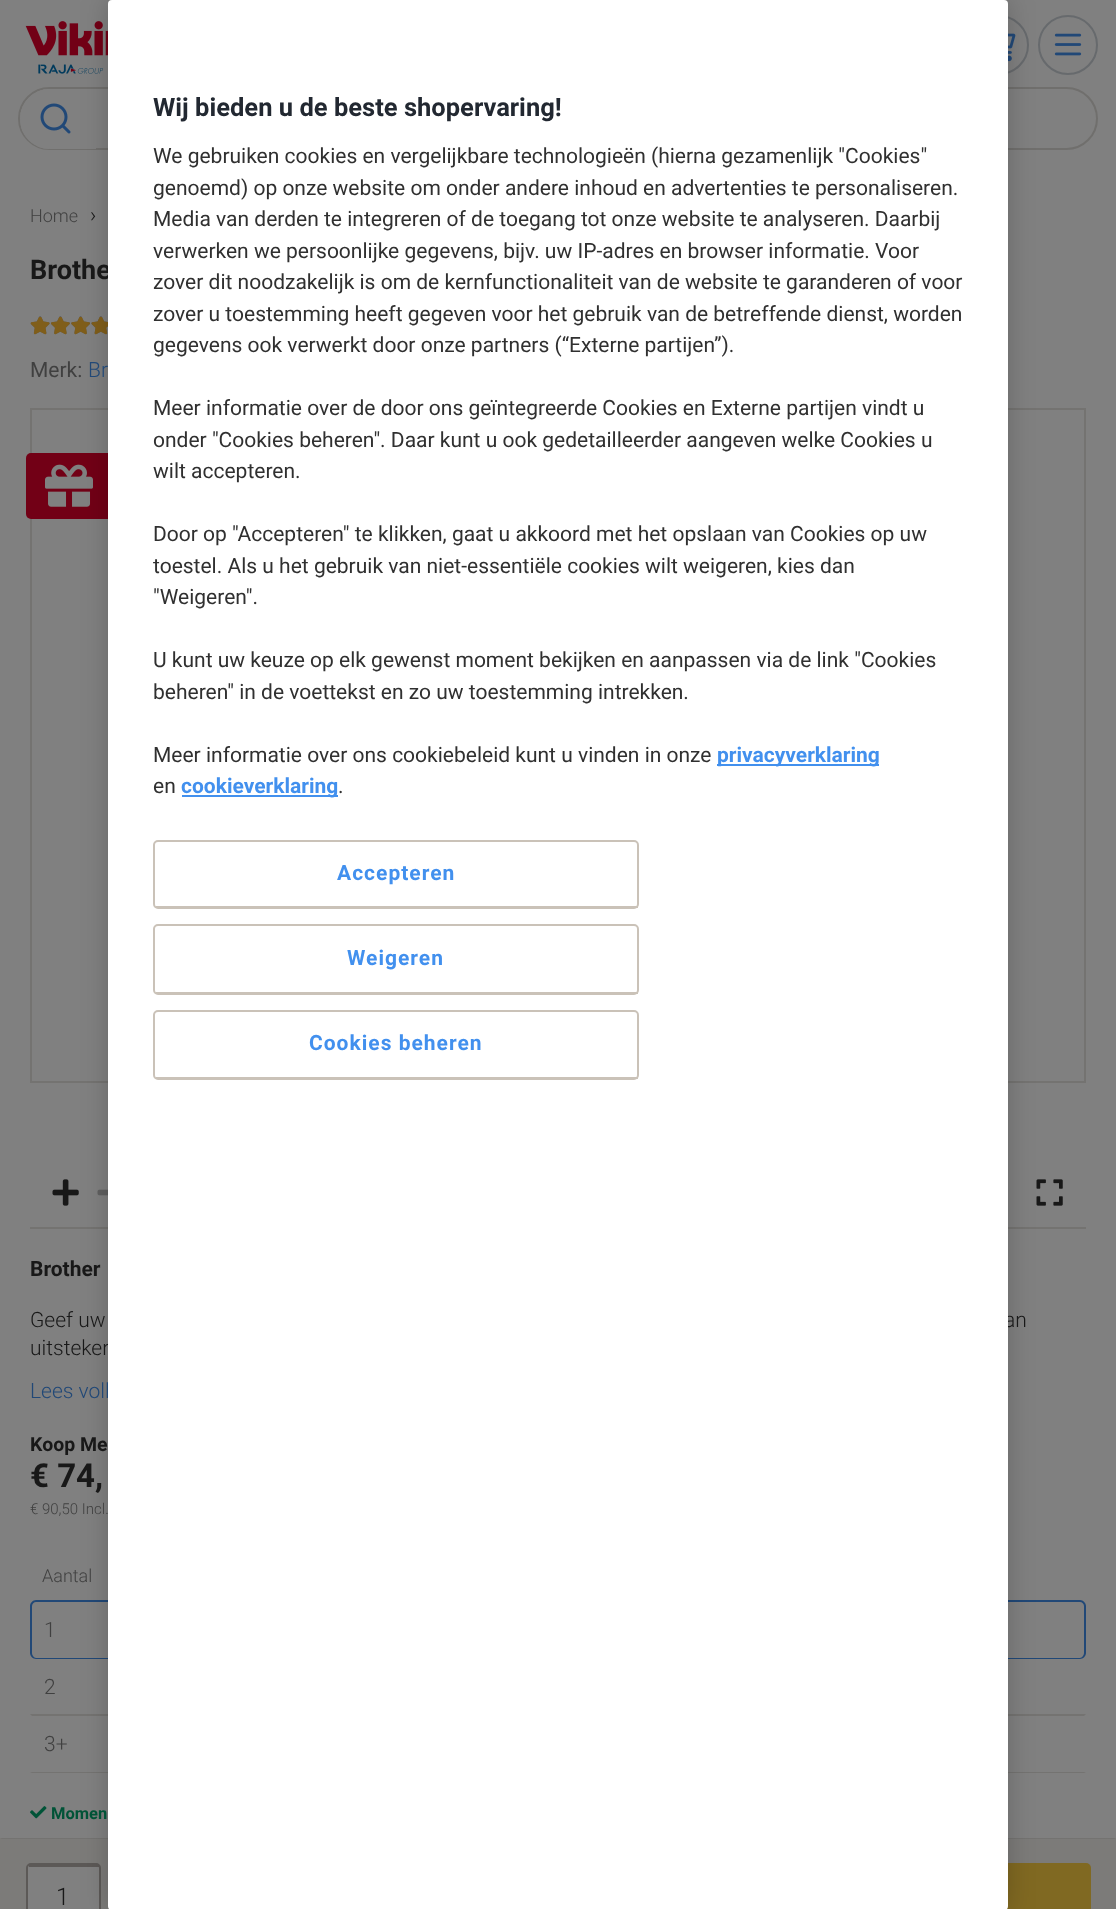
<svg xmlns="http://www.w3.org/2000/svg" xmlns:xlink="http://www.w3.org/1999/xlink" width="1116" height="1909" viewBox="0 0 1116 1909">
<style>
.cls-1{font:300 18px Roboto;fill:#404040}
.cls-2{font:300 21px Roboto;fill:#181818}
.cls-3{font:bold 27px Roboto;fill:#181818}
.cls-4{font:21px Roboto;fill:#404040}
.cls-5{font:300 21px Roboto;fill:#214877}
.cls-6{font:bold 21px 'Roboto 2';fill:#181818}
.cls-7{font:bold 21px 'Roboto 2';letter-spacing:1px;fill:#4290ee}
.cls-8{font:21px Roboto;fill:#303030}
.cls-9{font:bold 21px 'Roboto 2';fill:#4290ee}
.cls-10{font:bold 25.5px 'Roboto 2';fill:#222831}
.cls-11{font:bold 19.5px 'Roboto 2';fill:#181818}
.cls-12{font:bold 33px 'Roboto 2';fill:#181818}
.cls-13{font:300 15px Roboto;fill:#404040}
.cls-14{font:300 21px Roboto;fill:#404040}
.cls-15{font:bold 16.5px 'Roboto 2';fill:#005337}
.cls-16{font:300 24px Roboto;fill:#181818}
</style>
<defs>
<clipPath id="clip1"><path d="M50 89H96V149H50C33.5 149 20 135.5 20 119C20 102.5 33.5 89 50 89Z"/></clipPath>
</defs>
<rect width="100%" height="100%" fill="#808080"/>
<image xlink:href="image0.png" x="25" y="21" width="83" height="53"/>
<circle fill="none" stroke="#676a6d" stroke-width="2" cx="999" cy="45" r="29"/>
<image xlink:href="image1.png" x="1008" y="33" width="8" height="29"/>
<circle fill="none" stroke="#676a6d" stroke-width="2" cx="1068" cy="45" r="29"/>
<rect fill="none" stroke="#706f6d" stroke-width="2" x="19" y="88" width="1078" height="61" rx="30.5"/>
<g clip-path="url(#clip1)">
<rect fill="#808080" x="21" y="89" width="73" height="60"/>
</g>
<path fill="none" stroke="#808080" stroke-width="2" d="M50 90H95V148H50C34 148 21 135 21 119C21 103 34 90 50 90Z"/>
<image xlink:href="image3.png" x="40" y="103" width="31" height="31"/>
<image xlink:href="image4.png" x="30" y="316" width="78" height="19"/>
<image xlink:href="image5.png" x="30" y="317" width="78" height="18"/>
<rect fill="none" stroke="#747371" stroke-width="2" x="31" y="409" width="1054" height="673"/>
<rect fill="#747371" x="30" y="1227" width="1056" height="2"/>
<image xlink:href="image6.png" x="52" y="1179" width="27" height="27"/>
<image xlink:href="image7.png" x="97" y="1189" width="11" height="7"/>
<image xlink:href="image8.png" x="1036" y="1179" width="27" height="27"/>
<rect fill="#720016" x="26" y="453" width="87" height="66" rx="5"/>
<image xlink:href="image9.png" x="45" y="464" width="48" height="43"/>
<path fill="#214877" fill-rule="evenodd" d="M36 1600H180V1659H36C33 1659 30 1656 30 1653V1606C30 1603 33 1600 36 1600ZM36 1602H180V1658H36C34 1658 32 1655 32 1653V1606C32 1604 34 1602 36 1602Z"/>
<path fill="#214877" fill-rule="evenodd" d="M280 1600H1080C1083 1600 1086 1603 1086 1606V1653C1086 1656 1083 1659 1080 1659H280ZM280 1602H1080C1082 1602 1084 1604 1084 1606V1653C1084 1655 1082 1658 1080 1658H280Z"/>
<path fill="#747371" d="M30 1714H180V1716H32Z"/>
<path fill="#747371" d="M180 1773H30L32 1772H180Z"/>
<path fill="#747371" d="M280 1714H1086L1084 1716H280Z"/>
<path fill="#747371" d="M1086 1773H280V1772H1084Z"/>
<rect fill="#7c7b79" x="0" y="1838" width="1116" height="71"/>
<path fill="#747371" d="M0 1838H1116L1114 1839H2Z"/>
<path fill="#808080" d="M30 1866H96C98 1866 99 1867 99 1868V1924C99 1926 98 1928 96 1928H30C28 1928 27 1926 27 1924V1868C27 1867 28 1866 30 1866Z"/>
<rect fill="none" stroke="#5c5957" stroke-width="2" x="27" y="1864" width="73" height="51" rx="4"/>
<rect fill="#5c5957" x="29" y="1865" width="70" height="2"/>
<rect fill="#806922" x="116" y="1863" width="975" height="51" rx="5"/>
<rect fill="#000000" fill-opacity="0.2" filter="blur(13.5px)" x="108" y="0" width="900" height="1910" rx="4"/>
<image xlink:href="image2.png" x="1054" y="33" width="28" height="23"/>
<image xlink:href="image10.png" x="30" y="1806" width="17" height="13"/>
<text class="cls-1" x="30" y="222">Home</text>
<text class="cls-2" x="90" y="222">›</text>
<text class="cls-3" x="30" y="279">Brothe</text>
<text class="cls-4" x="30" y="377">Merk:</text>
<text class="cls-5" x="88" y="377">Br</text>
<text class="cls-6" x="30" y="1276">Brother</text>
<text class="cls-2" x="30" y="1327">Geef uw</text>
<text class="cls-2" x="1004" y="1327">an</text>
<text class="cls-2" x="30" y="1355">uitsteken</text>
<rect fill="#ffffff" x="108" y="0" width="900" height="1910" rx="4"/>
<rect fill="none" stroke="#cac2b8" stroke-width="2" x="154" y="841" width="484" height="67" rx="4"/>
<text class="cls-7" x="337" y="880">Accepteren</text>
<rect fill="#cac2b8" x="156" y="906" width="482" height="2"/>
<rect fill="none" stroke="#cac2b8" stroke-width="2" x="154" y="925" width="484" height="69" rx="4"/>
<text class="cls-7" x="347" y="965">Weigeren</text>
<rect fill="#cac2b8" x="156" y="992" width="482" height="2"/>
<rect fill="none" stroke="#cac2b8" stroke-width="2" x="154" y="1011" width="484" height="68" rx="4"/>
<text class="cls-7" x="309" y="1050">Cookies beheren</text>
<rect fill="#cac2b8" x="156" y="1077" width="482" height="2"/>
<text class="cls-8" x="338" y="793">.</text>
<rect fill="#4290ee" x="182" y="795" width="156" height="2"/>
<text class="cls-9" x="181" y="793">cookieverklaring</text>
<text class="cls-8" x="153" y="793">en</text>
<rect fill="#4290ee" x="717" y="764" width="162" height="2"/>
<text class="cls-9" x="717" y="762">privacyverklaring</text>
<text class="cls-8" x="153" y="762">Meer informatie over ons cookiebeleid kunt u vinden in onze</text>
<text class="cls-8" x="153" y="699">beheren" in de voettekst en zo uw toestemming intrekken.</text>
<text class="cls-8" x="153" y="667">U kunt uw keuze op elk gewenst moment bekijken en aanpassen via de link "Cookies</text>
<text class="cls-8" x="153" y="604">"Weigeren".</text>
<text class="cls-8" x="153" y="573">toestel. Als u het gebruik van niet-essentiële cookies wilt weigeren, kies dan</text>
<text class="cls-8" x="153" y="541">Door op "Accepteren" te klikken, gaat u akkoord met het opslaan van Cookies op uw</text>
<text class="cls-8" x="153" y="478">wilt accepteren.</text>
<text class="cls-8" x="153" y="447">onder "Cookies beheren". Daar kunt u ook gedetailleerder aangeven welke Cookies u</text>
<text class="cls-8" x="153" y="415">Meer informatie over de door ons geïntegreerde Cookies en Externe partijen vindt u</text>
<text class="cls-8" x="153" y="352">gegevens ook verwerkt door onze partners (“Externe partijen”).</text>
<text class="cls-8" x="153" y="321">zover u toestemming heeft gegeven voor het gebruik van de betreffende dienst, worden</text>
<text class="cls-8" x="153" y="289">zover dit noodzakelijk is om de kernfunctionaliteit van de website te garanderen of voor</text>
<text class="cls-8" x="153" y="258">verwerken we persoonlijke gegevens, bijv. uw IP-adres en browser informatie. Voor</text>
<text class="cls-8" x="153" y="226">Media van derden te integreren of de toegang tot onze website te analyseren. Daarbij</text>
<text class="cls-8" x="153" y="195">genoemd) op onze website om onder andere inhoud en advertenties te personaliseren.</text>
<text class="cls-8" x="153" y="163">We gebruiken cookies en vergelijkbare technologieën (hierna gezamenlijk "Cookies"</text>
<text class="cls-10" x="153" y="116">Wij bieden u de beste shopervaring!</text>
<text class="cls-5" x="30" y="1398">Lees voll</text>
<text class="cls-11" x="30" y="1451">Koop Me</text>
<text class="cls-12" x="30" y="1487">€ 74,</text>
<text class="cls-13" x="30" y="1514">€ 90,50 Incl.</text>
<text class="cls-1" x="42" y="1582">Aantal</text>
<text class="cls-14" x="44" y="1637">1</text>
<text class="cls-14" x="44" y="1694">2</text>
<text class="cls-14" x="44" y="1751">3+</text>
<text class="cls-15" x="51" y="1819">Momen</text>
<text class="cls-16" x="56" y="1905">1</text>
</svg>
